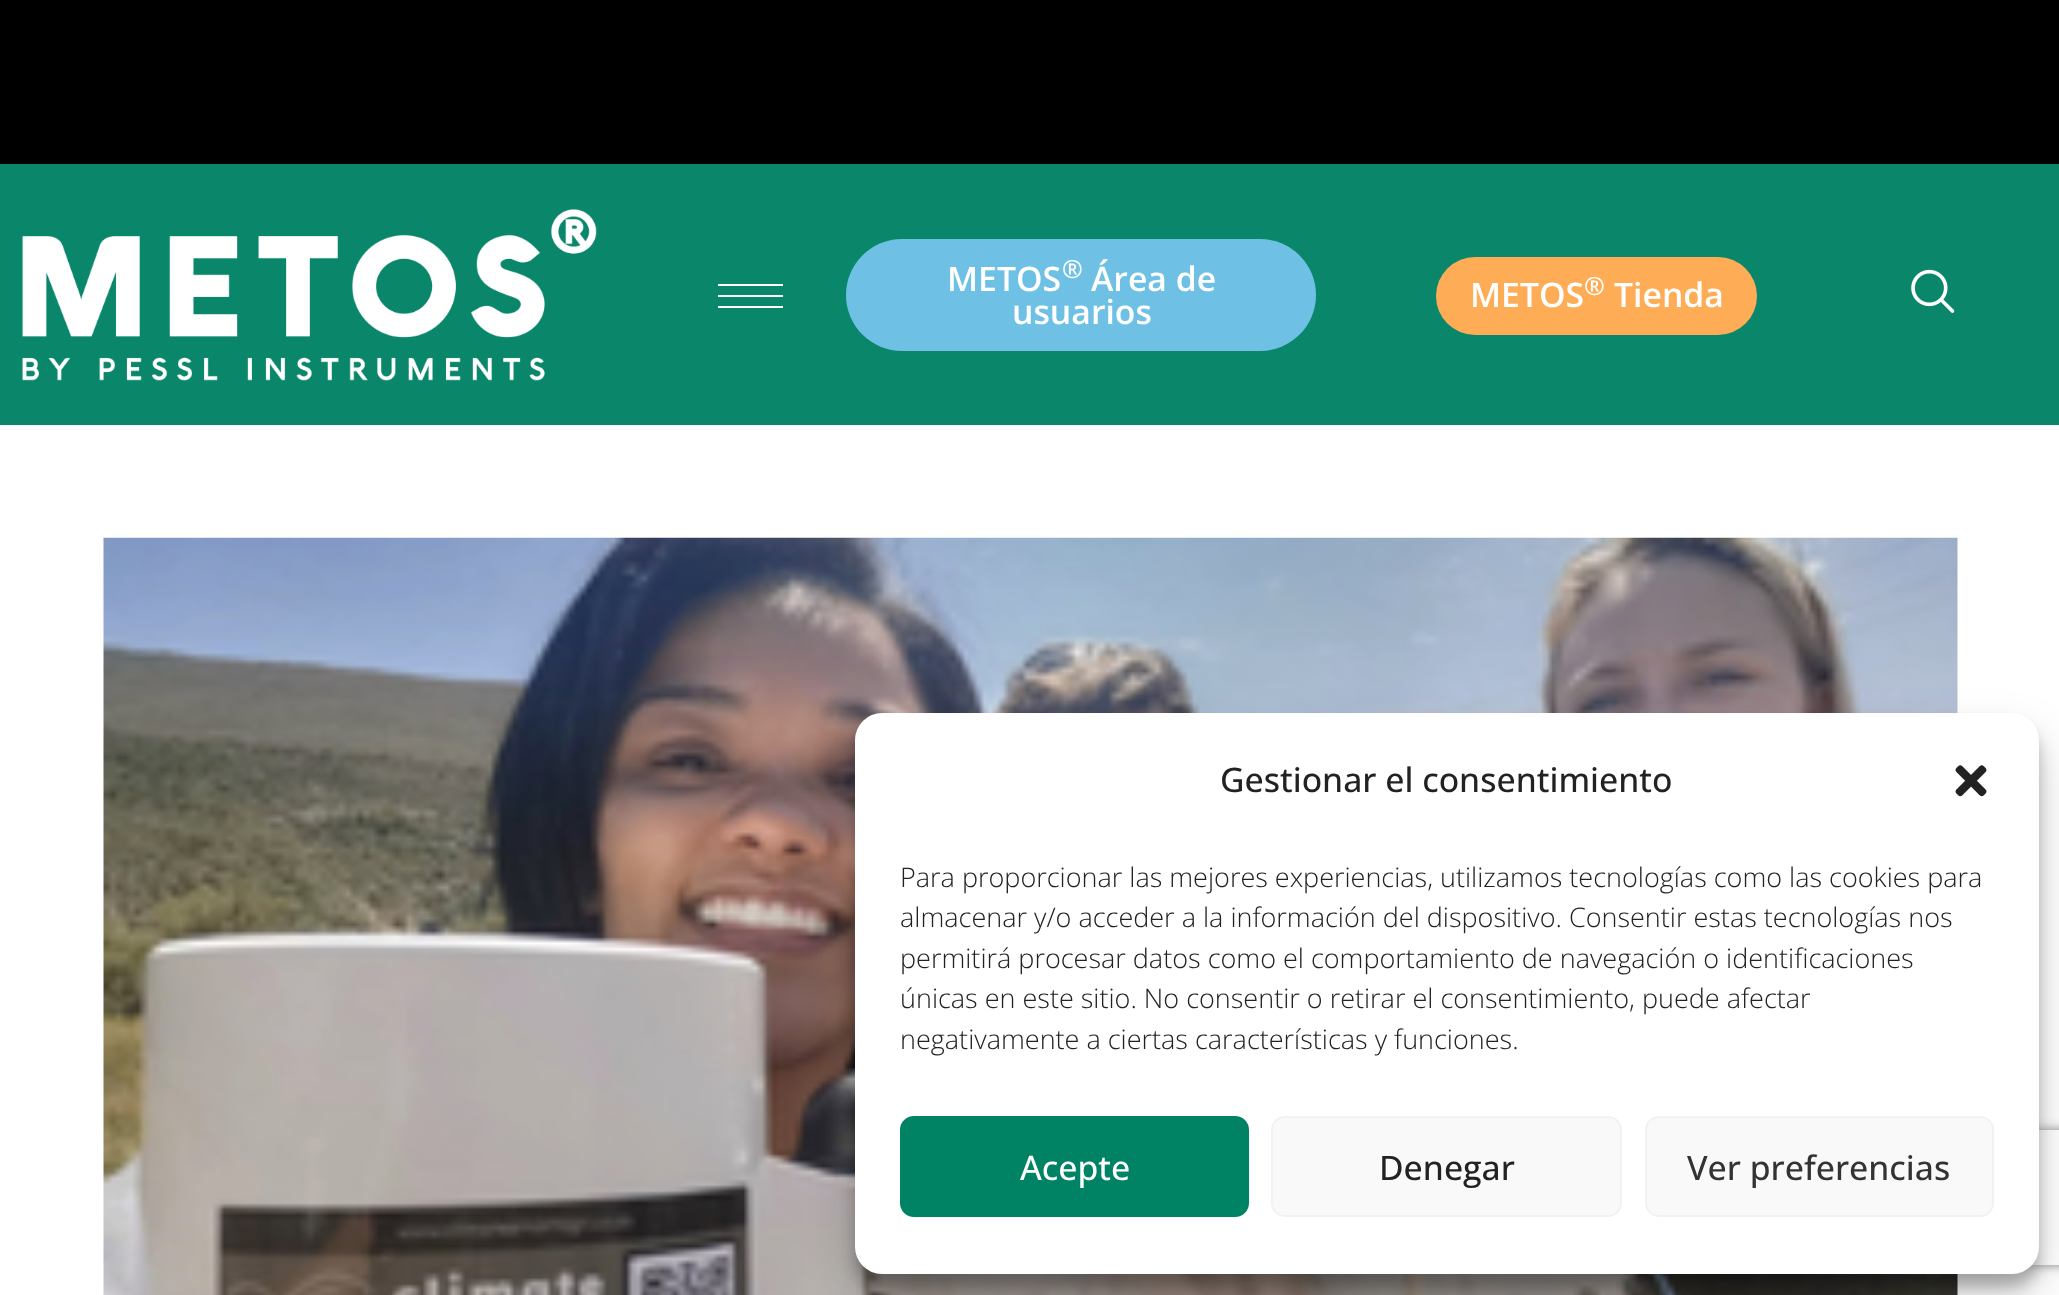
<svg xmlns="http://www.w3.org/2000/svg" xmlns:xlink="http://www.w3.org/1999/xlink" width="2059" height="1295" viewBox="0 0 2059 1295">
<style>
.cls-1{font:600 33.75px Open Sans;fill:#ffffff}
.cls-2{font:600 25px Open Sans;fill:#ffffff}
.cls-3{font:500 33.75px Open Sans;fill:#222222}
.cls-4{font:300 27px Open Sans;fill:#222222}
.cls-5{font:500 33.75px Open Sans;fill:#ffffff}
.cls-6{font:500 33.75px Open Sans;fill:#333333}
</style>
<defs>
<clipPath id="clip1"><path d="M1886 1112H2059V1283H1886ZM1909 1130H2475C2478 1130 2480 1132 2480 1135V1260C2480 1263 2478 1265 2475 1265H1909C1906 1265 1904 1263 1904 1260V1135C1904 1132 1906 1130 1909 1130Z" clip-rule="evenodd"/></clipPath>
</defs>
<rect width="100%" height="100%" fill="#ffffff"/>
<rect fill="#000000" x="0" y="0" width="2059" height="164"/>
<rect fill="#0a876a" x="0" y="164" width="2059" height="261"/>
<image xlink:href="image0.png" x="22" y="209" width="575" height="172"/>
<rect fill="#ffffff" x="718" y="284" width="65" height="2"/>
<rect fill="#ffffff" x="718" y="295" width="65" height="2"/>
<rect fill="#ffffff" x="718" y="306" width="65" height="2"/>
<rect fill="#6ec1e4" x="846" y="239" width="470" height="112" rx="56"/>
<rect fill="#ffac57" x="1436" y="257" width="321" height="78" rx="39"/>
<image xlink:href="image1.png" x="1911" y="269" width="44" height="44"/>
<image xlink:href="image2.png" x="103" y="537" width="1855" height="758"/>
<rect fill="#000000" fill-opacity="0.23" filter="blur(7px)" x="855" y="727" width="1184" height="560" rx="27"/>
<rect fill="#000000" fill-opacity="0.19" filter="blur(22.5px)" x="855" y="736" width="1184" height="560" rx="27"/>
<g clip-path="url(#clip1)">
<rect fill="#808080" filter="blur(5.5px)" x="1904" y="1130" width="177" height="135" rx="5"/>
</g>
<rect fill="#ffffff" x="855" y="713" width="1184" height="561" rx="27"/>
<image xlink:href="image3.png" x="1955" y="765" width="32" height="32"/>
<rect fill="#008364" stroke="#008364" stroke-width="2" x="901" y="1117" width="347" height="99" rx="13"/>
<rect fill="#f9f9f9" stroke="#f2f2f2" stroke-width="2" x="1272" y="1117" width="349" height="99" rx="13"/>
<rect fill="#f9f9f9" stroke="#f2f2f2" stroke-width="2" x="1646" y="1117" width="347" height="99" rx="13"/>
<text class="cls-1" x="947" y="291">METOS</text>
<text class="cls-2" x="1062" y="278">®</text>
<text class="cls-1" x="1091" y="291">Área de</text>
<text class="cls-1" x="1012" y="324">usuarios</text>
<text class="cls-1" x="1470" y="307">METOS</text>
<text class="cls-2" x="1584" y="295">®</text>
<text class="cls-1" x="1614" y="307">Tienda</text>
<text class="cls-3" x="1220" y="792">Gestionar el consentimiento</text>
<text class="cls-4"><tspan x="900" y="887">Para proporcionar las mejores experiencias, utilizamos tecnologías como las cookies para</tspan><tspan x="900" y="927">almacenar y/o acceder a la información del dispositivo. Consentir estas tecnologías nos</tspan><tspan x="900" y="968">permitirá procesar datos como el comportamiento de navegación o identificaciones</tspan><tspan x="900" y="1008">únicas en este sitio. No consentir o retirar el consentimiento, puede afectar</tspan><tspan x="900" y="1049">negativamente a ciertas características y funciones.</tspan></text>
<text class="cls-5" x="1020" y="1180">Acepte</text>
<text class="cls-3" x="1379" y="1180">Denegar</text>
<text class="cls-6" x="1687" y="1180">Ver preferencias</text>
</svg>
